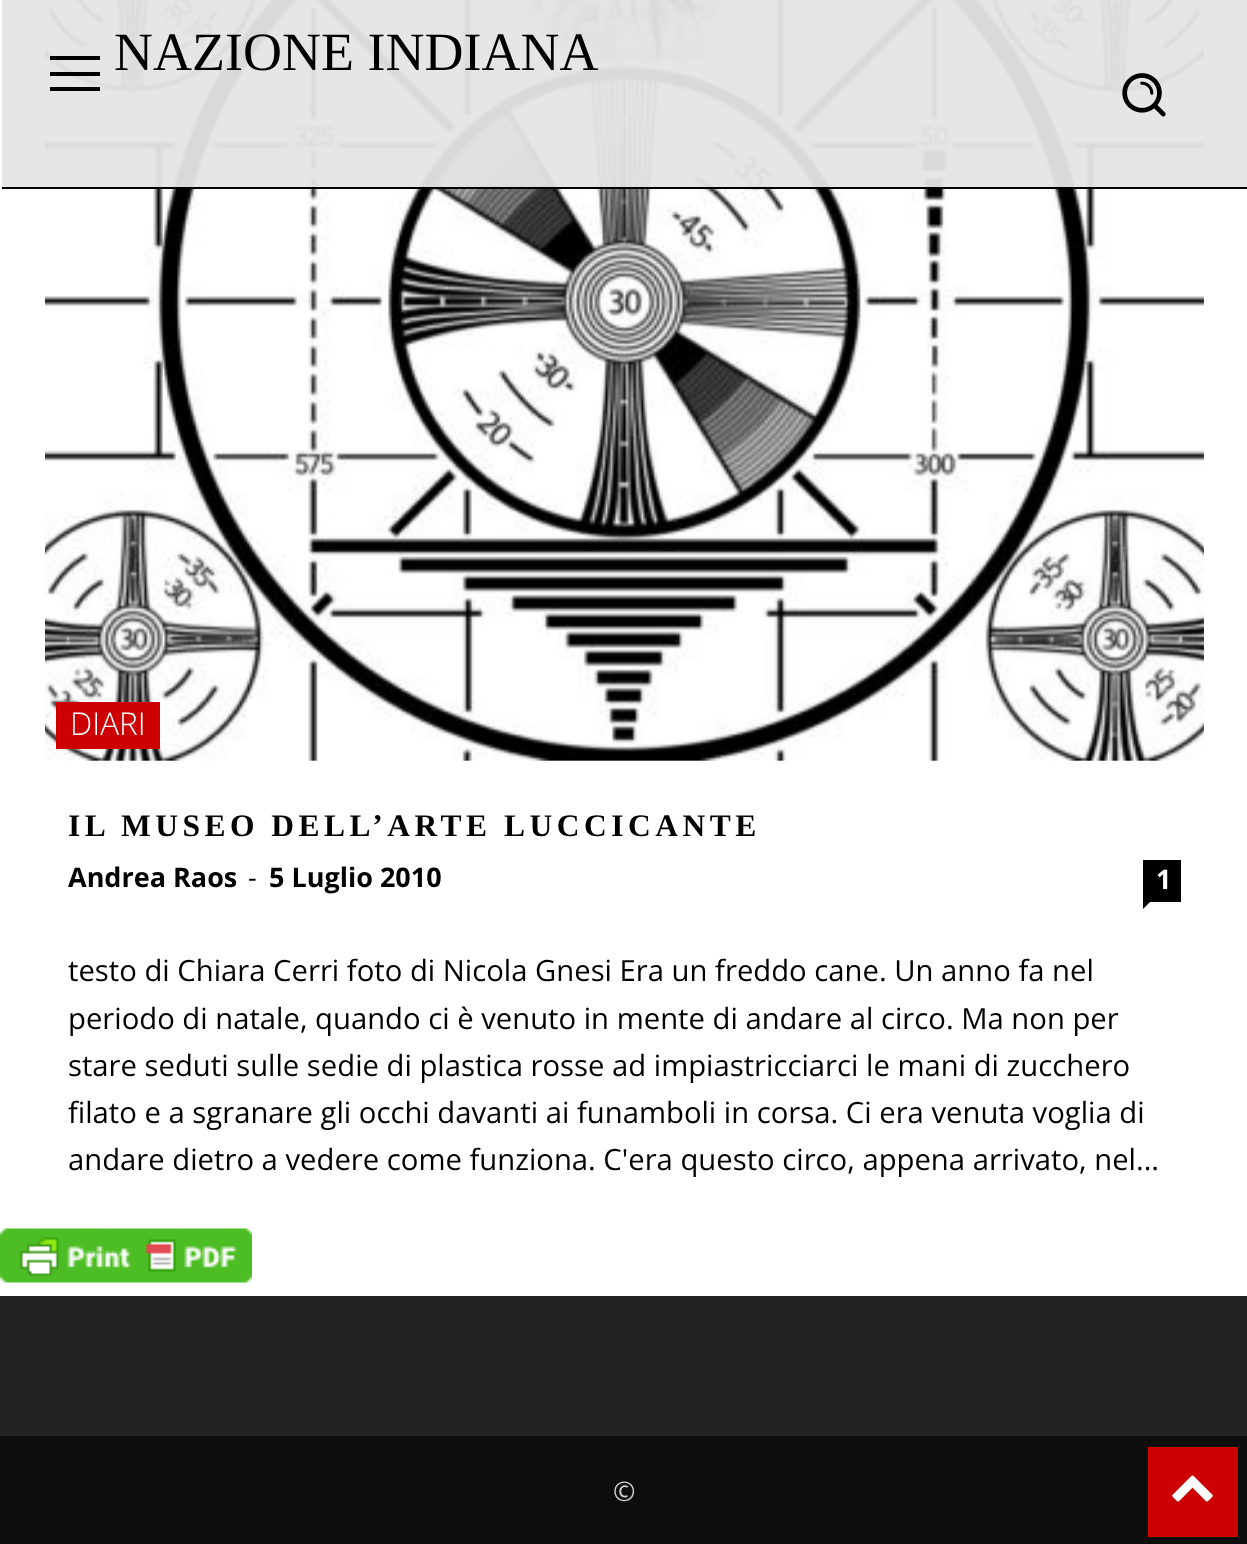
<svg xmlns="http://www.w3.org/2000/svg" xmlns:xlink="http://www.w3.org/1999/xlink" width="1247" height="1544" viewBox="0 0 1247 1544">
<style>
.cls-1{font:54px Liberation Serif;fill:#000000}
.cls-2{font:300 31.5px Open Sans;fill:#ffffff}
.cls-3{font:bold 31.5px Liberation Serif;letter-spacing:4.5px;fill:#000000}
.cls-4{font:bold 27px Open Sans;fill:#000000}
.cls-5{font:27px Open Sans;fill:#000000}
.cls-6{font:bold 27px Open Sans;fill:#ffffff}
.cls-7{font:29.25px Open Sans;fill:#000000}
.cls-8{font:27px Open Sans;fill:#cccccc}
</style>
<rect width="100%" height="100%" fill="#ffffff"/>
<image xlink:href="image1.png" x="45" y="0" width="1159" height="761"/>
<image xlink:href="image2.png" x="47" y="13" width="1157" height="748"/>
<rect fill="#e5e5e5" fill-opacity="0.95" x="2" y="0" width="1245" height="187"/>
<rect fill="#000000" x="2" y="187" width="1245" height="2"/>
<path fill="#000000" d="M50 72H100V76H50ZM50 56H100V60H50ZM50 87H100V91H50Z"/>
<image xlink:href="image0.png" x="1122" y="73" width="44" height="44"/>
<rect fill="#cc0000" x="56" y="702" width="104" height="47"/>
<rect fill="#000000" x="1143" y="860" width="38" height="42"/>
<path fill="#000000" d="M1143 902H1150L1143 909Z"/>
<image xlink:href="image3.png" x="0" y="1228" width="252" height="55"/>
<rect fill="#222222" x="0" y="1296" width="1247" height="140"/>
<rect fill="#0d0d0d" x="0" y="1436" width="1247" height="108"/>
<rect fill="#cc0000" x="1148" y="1447" width="90" height="90"/>
<image xlink:href="image4.png" x="1172" y="1475" width="41" height="27"/>
<text class="cls-1" x="114" y="70">NAZIONE INDIANA</text>
<text class="cls-2" x="70" y="735">DIARI</text>
<text class="cls-3" x="68" y="836">IL MUSEO DELL’ARTE LUCCICANTE</text>
<text class="cls-4" x="68" y="887">Andrea Raos</text>
<text class="cls-5" x="248" y="887">-</text>
<text class="cls-4" x="269" y="887">5 Luglio 2010</text>
<text class="cls-6" x="1156" y="889">1</text>
<text class="cls-7"><tspan x="68" y="981">testo di Chiara Cerri foto di Nicola Gnesi Era un freddo cane. Un anno fa nel</tspan><tspan x="68" y="1029">periodo di natale, quando ci è venuto in mente di andare al circo. Ma non per</tspan><tspan x="68" y="1076">stare seduti sulle sedie di plastica rosse ad impiastricciarci le mani di zucchero</tspan><tspan x="68" y="1123">filato e a sgranare gli occhi davanti ai funamboli in corsa. Ci era venuta voglia di</tspan><tspan x="68" y="1170">andare dietro a vedere come funziona. C'era questo circo, appena arrivato, nel...</tspan></text>
<text class="cls-8" x="613" y="1501">©</text>
</svg>
